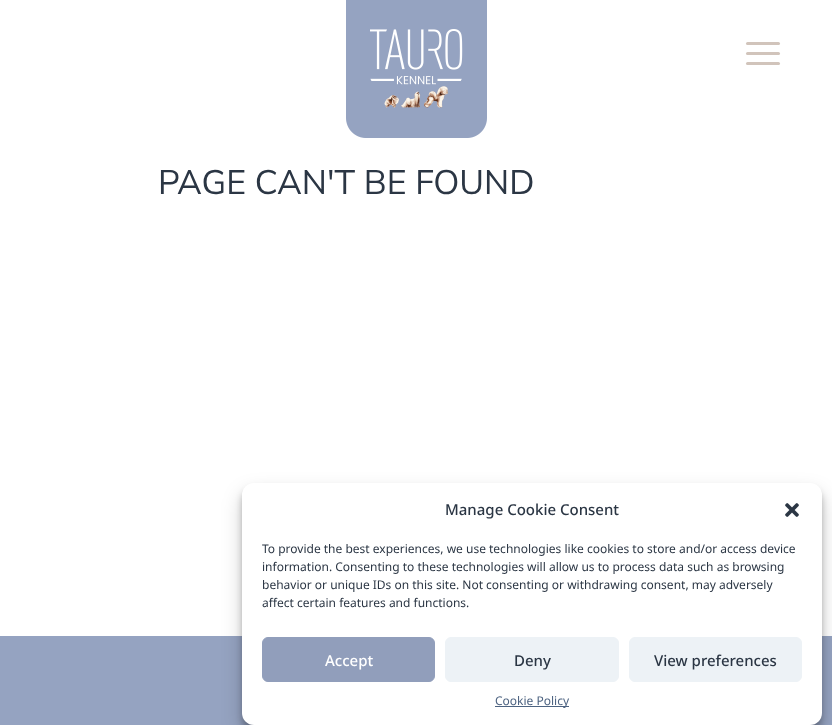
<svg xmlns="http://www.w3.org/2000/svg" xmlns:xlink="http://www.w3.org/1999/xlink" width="832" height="725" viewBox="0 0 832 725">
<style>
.cls-1{font:34px Nunito Sans;fill:#2b3644}
.cls-2{font:500 15px Noto Sans;fill:#2b3644}
.cls-3{font:12px Noto Sans;fill:#2b3644}
.cls-4{font:500 15px Noto Sans;fill:#ffffff}
.cls-5{font:12px Noto Sans;fill:#4d6381}
</style>
<rect width="100%" height="100%" fill="#ffffff"/>
<image xlink:href="image0.png" x="346" y="0" width="141" height="138"/>
<rect fill="#d1c4bb" x="746" y="52" width="34" height="3" rx="1.5"/>
<rect fill="#d1c4bb" x="746" y="42" width="34" height="3" rx="1.5"/>
<rect fill="#d1c4bb" x="746" y="62" width="34" height="3" rx="1.5"/>
<rect fill="#95a3c1" x="0" y="636" width="832" height="89"/>
<rect fill="#000000" fill-opacity="0.23" filter="blur(3px)" x="242" y="489" width="580" height="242" rx="12"/>
<rect fill="#000000" fill-opacity="0.19" filter="blur(10px)" x="242" y="493" width="580" height="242" rx="12"/>
<rect fill="#ffffff" x="242" y="483" width="580" height="242" rx="12"/>
<image xlink:href="image1.png" x="785" y="503" width="14" height="14"/>
<rect fill="#919ebb" stroke="#919ebb" x="262.5" y="637.5" width="172" height="44" rx="5.5"/>
<rect fill="#edf2f6" stroke="#edf2f6" x="445.5" y="637.5" width="173" height="44" rx="5.5"/>
<rect fill="#edf2f6" stroke="#edf2f6" x="629.5" y="637.5" width="172" height="44" rx="5.5"/>
<rect fill="#4d6381" x="495" y="706" width="74" height="1"/>
<text class="cls-1" x="158" y="194">PAGE CAN'T BE FOUND</text>
<text class="cls-2" x="445" y="515">Manage Cookie Consent</text>
<text class="cls-3"><tspan x="262" y="553">To provide the best experiences, we use technologies like cookies to store and/or access device</tspan><tspan x="262" y="571">information. Consenting to these technologies will allow us to process data such as browsing</tspan><tspan x="262" y="589">behavior or unique IDs on this site. Not consenting or withdrawing consent, may adversely</tspan><tspan x="262" y="607">affect certain features and functions.</tspan></text>
<text class="cls-4" x="325" y="666">Accept</text>
<text class="cls-2" x="514" y="666">Deny</text>
<text class="cls-2" x="654" y="666">View preferences</text>
<text class="cls-5" x="495" y="705">Cookie Policy</text>
</svg>
